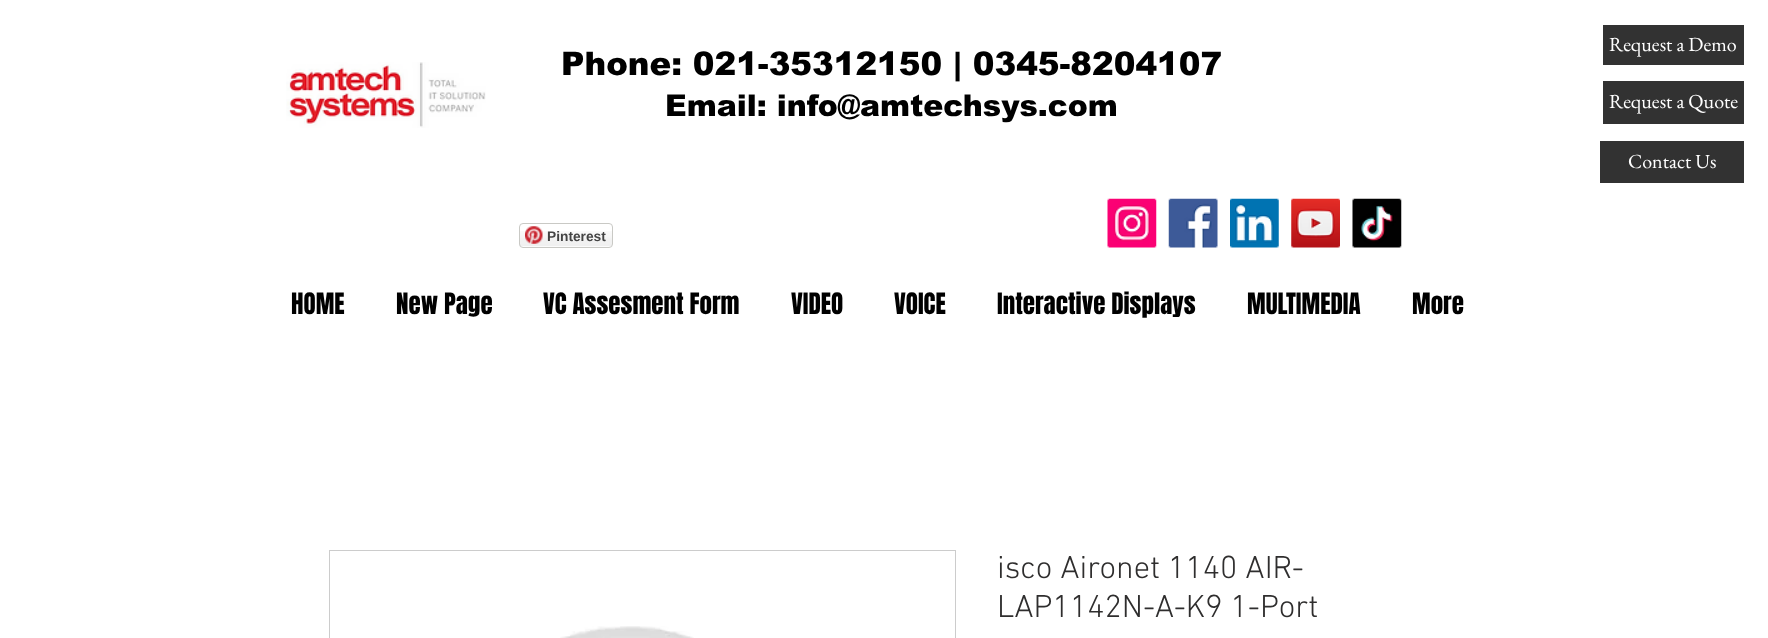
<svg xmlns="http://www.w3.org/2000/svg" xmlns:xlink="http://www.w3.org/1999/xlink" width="1768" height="638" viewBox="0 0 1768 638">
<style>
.cls-1{font:900 32.5px arial;fill:#000000}
.cls-2{font:900 30px arial;fill:#000000}
.cls-3{font:bold 13.75px Liberation Sans;fill:#444444}
.cls-4{font:25px Anton;fill:#000000}
.cls-5{font:20px EB Garamond;fill:#ffffff}
.cls-6{font:300 32.5px 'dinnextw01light';fill:#2f2e2e}
</style>
<rect width="100%" height="100%" fill="#ffffff"/>
<image xlink:href="image0.png" x="286" y="62" width="200" height="66"/>
<image xlink:href="image2.png" x="519" y="231" width="94" height="16"/>
<rect fill="none" stroke="#c9c9c5" x="519.5" y="223.5" width="93" height="24" rx="3.5"/>
<image xlink:href="image1.png" x="525" y="226" width="18" height="18"/>
<image xlink:href="image3.png" x="1107" y="198" width="50" height="50"/>
<image xlink:href="image4.png" x="1168" y="198" width="50" height="50"/>
<image xlink:href="image5.png" x="1230" y="198" width="49" height="50"/>
<image xlink:href="image6.png" x="1291" y="198" width="49" height="50"/>
<image xlink:href="image7.png" x="1352" y="198" width="50" height="50"/>
<rect fill="#323232" x="1603" y="25" width="141" height="40"/>
<rect fill="#323232" x="1603" y="81" width="141" height="43"/>
<rect fill="#323232" x="1600" y="141" width="144" height="42"/>
<rect fill="none" stroke="#cccccc" x="329.5" y="550.5" width="626" height="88"/>
<image xlink:href="image8.png" x="560" y="626" width="134" height="12"/>
<text class="cls-1" x="561" y="75">Phone: 021-35312150 | 0345-8204107</text>
<text class="cls-2" x="665" y="116">Email: info@amtechsys.com</text>
<text class="cls-3" x="547" y="241">Pinterest</text>
<text class="cls-4" x="291" y="314">HOME</text>
<text class="cls-4" x="396" y="314">New Page</text>
<text class="cls-4" x="543" y="314">VC Assesment Form</text>
<text class="cls-4" x="791" y="314">VIDEO</text>
<text class="cls-4" x="894" y="314">VOICE</text>
<text class="cls-4" x="997" y="314">Interactive Displays</text>
<text class="cls-4" x="1247" y="314">MULTIMEDIA</text>
<text class="cls-4" x="1412" y="314">More</text>
<text class="cls-5" x="1609" y="51">Request a Demo</text>
<text class="cls-5" x="1609" y="108">Request a Quote</text>
<text class="cls-5" x="1628" y="168">Contact Us</text>
<text class="cls-6"><tspan x="997" y="578">isco Aironet 1140 AIR-</tspan><tspan x="997" y="617">LAP1142N-A-K9 1-Port</tspan></text>
</svg>
